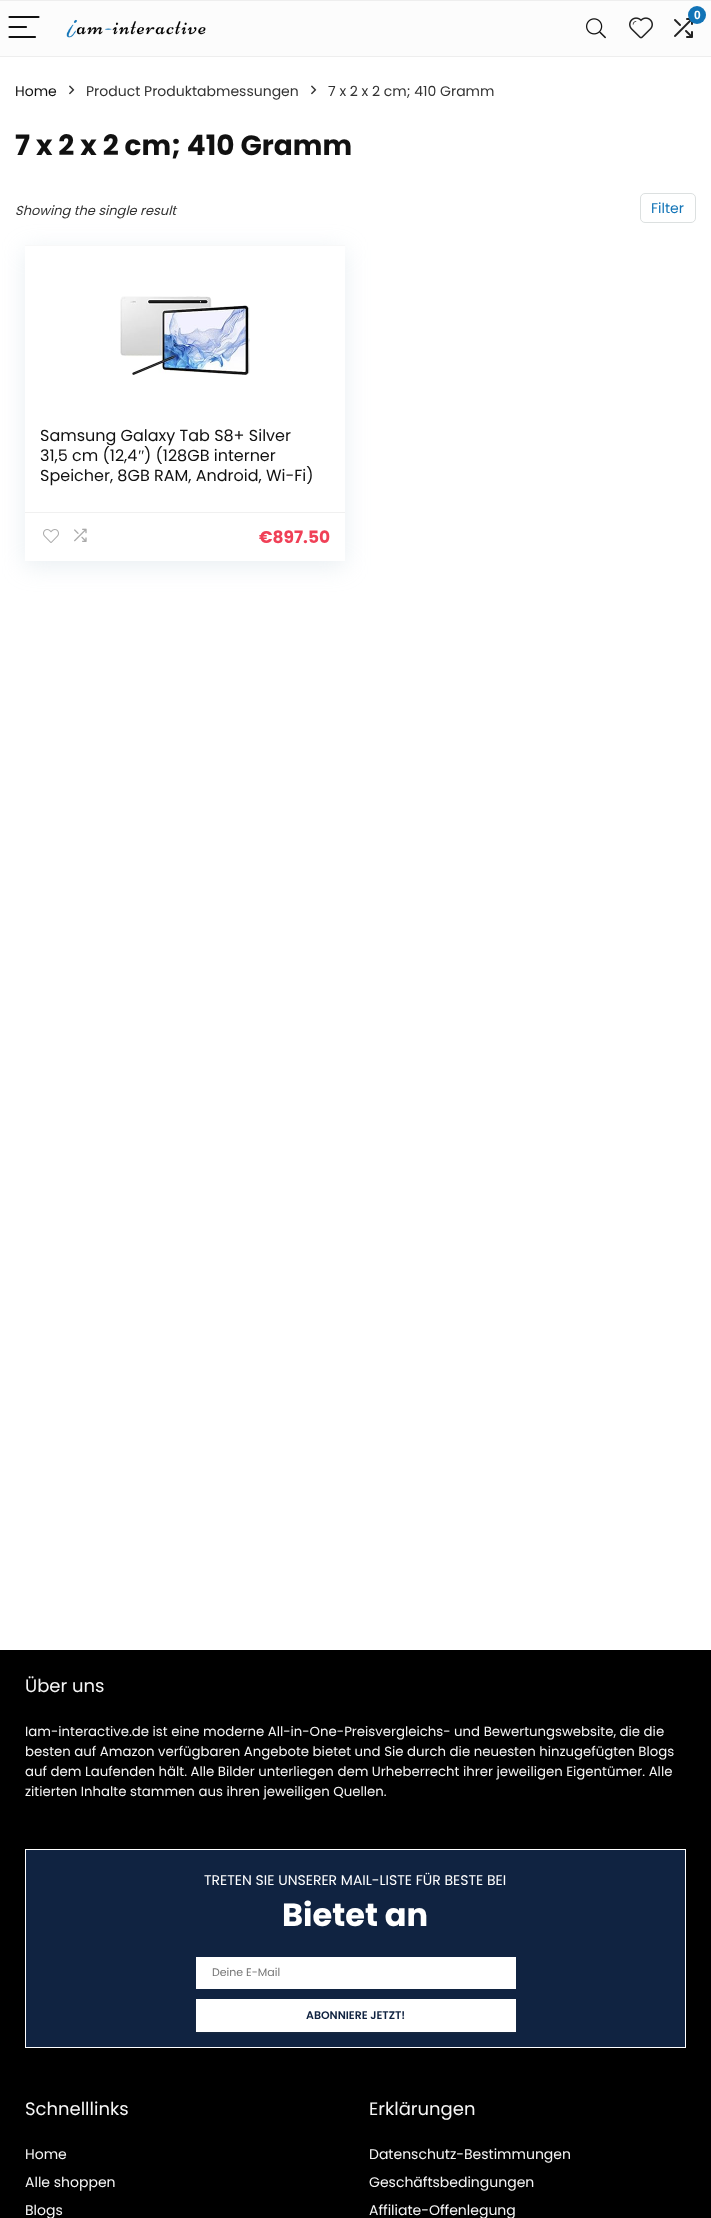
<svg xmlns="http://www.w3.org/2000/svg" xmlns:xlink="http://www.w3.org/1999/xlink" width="711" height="2218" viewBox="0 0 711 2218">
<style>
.cls-1{font:bold 12px Liberation Sans;fill:#ffffff}
.cls-2{font:14px Poppins;fill:#111111}
.cls-3{font:14px Poppins;fill:#333333}
.cls-4{font:bold 28px Poppins;fill:#111111}
.cls-5{font:italic 13px Poppins;fill:#333333}
.cls-6{font:14px Poppins;fill:#1274b7}
.cls-7{font:16px Poppins;fill:#111111}
.cls-8{font:16px Liberation Serif;fill:#111111}
.cls-9{font:bold 17px Poppins;fill:#f04057}
.cls-10{font:18px Poppins;fill:#f5f5f5}
.cls-11{font:13.3px Poppins;fill:#f5f5f5}
.cls-12{font:14px Poppins;fill:#ffffff}
.cls-13{font:bold 32px Poppins;fill:#ffffff}
.cls-14{font:11px Poppins;fill:#757575}
.cls-15{font:600 11px Poppins;fill:#102341}
.cls-16{font:14px Poppins;fill:#f5f5f5}
</style>
<defs>
<clipPath id="clip1"><path d="M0 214H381V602H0ZM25 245H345V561H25Z" clip-rule="evenodd"/></clipPath>
</defs>
<rect width="100%" height="100%" fill="#ffffff"/>
<rect fill="#fcfcfc" x="0" y="1" width="711" height="55"/>
<rect fill="#eeeeee" x="0" y="0" width="711" height="1"/>
<rect fill="#eeeeee" x="0" y="56" width="711" height="1"/>
<path fill="none" stroke="#111111" stroke-width="2.2" stroke-linecap="round" d="M9.5 17H38.5M9.5 27H26M9.5 37H35"/>
<image xlink:href="image0.png" x="66" y="19" width="140" height="19"/>
<image xlink:href="image1.png" x="674" y="18" width="19" height="20"/>
<circle fill="#1274b7" cx="697" cy="15" r="9"/>
<image xlink:href="image2.png" x="586" y="18" width="20" height="21"/>
<image xlink:href="image3.png" x="629" y="17" width="24" height="22"/>
<image xlink:href="image4.png" x="69" y="85" width="6" height="10"/>
<image xlink:href="image4.png" x="311" y="85" width="6" height="10"/>
<rect fill="none" stroke="#dce0e0" x="640.5" y="193.5" width="55" height="29" rx="4.5"/>
<g clip-path="url(#clip1)">
<rect fill="#bccfdb" fill-opacity="0.35" filter="blur(11.5px)" x="25" y="250" width="320" height="316"/>
</g>
<rect fill="#f8f8f8" x="25" y="245" width="320" height="1"/>
<image xlink:href="image5.png" x="120" y="296" width="130" height="79"/>
<rect fill="#f0f0f0" x="25" y="512" width="320" height="1"/>
<image xlink:href="image6.png" x="43" y="529" width="16" height="14"/>
<image xlink:href="image7.png" x="74" y="528" width="13" height="14"/>
<rect fill="#000000" x="0" y="1650" width="711" height="568"/>
<rect fill="#102341" stroke="#ffffff" x="25.5" y="1849.5" width="660" height="198"/>
<rect fill="#ffffff" x="196" y="1957" width="320" height="32"/>
<rect fill="#3c4043" fill-opacity="0.3" filter="blur(1px)" x="196" y="2000" width="320" height="33"/>
<rect fill="#ffffff" x="196" y="1999" width="320" height="33"/>
<text class="cls-1" x="694" y="19">0</text>
<text class="cls-2" x="15" y="96">Home</text>
<text class="cls-3" x="86" y="96">Product Produktabmessungen</text>
<text class="cls-3" x="328" y="96">7 x 2 x 2 cm; 410 Gramm</text>
<text class="cls-4" x="15" y="155">7 x 2 x 2 cm; 410 Gramm</text>
<text class="cls-5" x="15" y="215">Showing the single result</text>
<text class="cls-6" x="651" y="213">Filter</text>
<text class="cls-7"><tspan x="40" y="441">Samsung Galaxy Tab S8+ Silver</tspan><tspan x="40" y="461">31,5 cm (12,4</tspan></text>
<text class="cls-8" x="138" y="461">″</text>
<text class="cls-7" x="144" y="461">) (128GB interner</text>
<text class="cls-7" x="40" y="481">Speicher, 8GB RAM, Android, Wi-Fi)</text>
<text class="cls-9" x="259" y="543">€897.50</text>
<text class="cls-10" x="25" y="1692">Über uns</text>
<text class="cls-11"><tspan x="25" y="1736">Iam-interactive.de ist eine moderne All-in-One-Preisvergleichs- und Bewertungswebsite, die die</tspan><tspan x="25" y="1756">besten auf Amazon verfügbaren Angebote bietet und Sie durch die neuesten hinzugefügten Blogs</tspan><tspan x="25" y="1776">auf dem Laufenden hält. Alle Bilder unterliegen dem Urheberrecht ihrer jeweiligen Eigentümer. Alle</tspan><tspan x="25" y="1796">zitierten Inhalte stammen aus ihren jeweiligen Quellen.</tspan></text>
<text class="cls-12" x="204" y="1885">TRETEN SIE UNSERER MAIL-LISTE FÜR BESTE BEI</text>
<text class="cls-13" x="282" y="1926">Bietet an</text>
<text class="cls-14" x="212" y="1976">Deine E-Mail</text>
<text class="cls-15" x="306" y="2019">ABONNIERE JETZT!</text>
<text class="cls-10" x="25" y="2115">Schnelllinks</text>
<text class="cls-16" x="25" y="2159">Home</text>
<text class="cls-16" x="25" y="2187">Alle shoppen</text>
<text class="cls-16" x="25" y="2215">Blogs</text>
<text class="cls-10" x="369" y="2115">Erklärungen</text>
<text class="cls-16" x="369" y="2159">Datenschutz-Bestimmungen</text>
<text class="cls-16" x="369" y="2187">Geschäftsbedingungen</text>
<text class="cls-16" x="369" y="2215">Affiliate-Offenlegung</text>
</svg>
